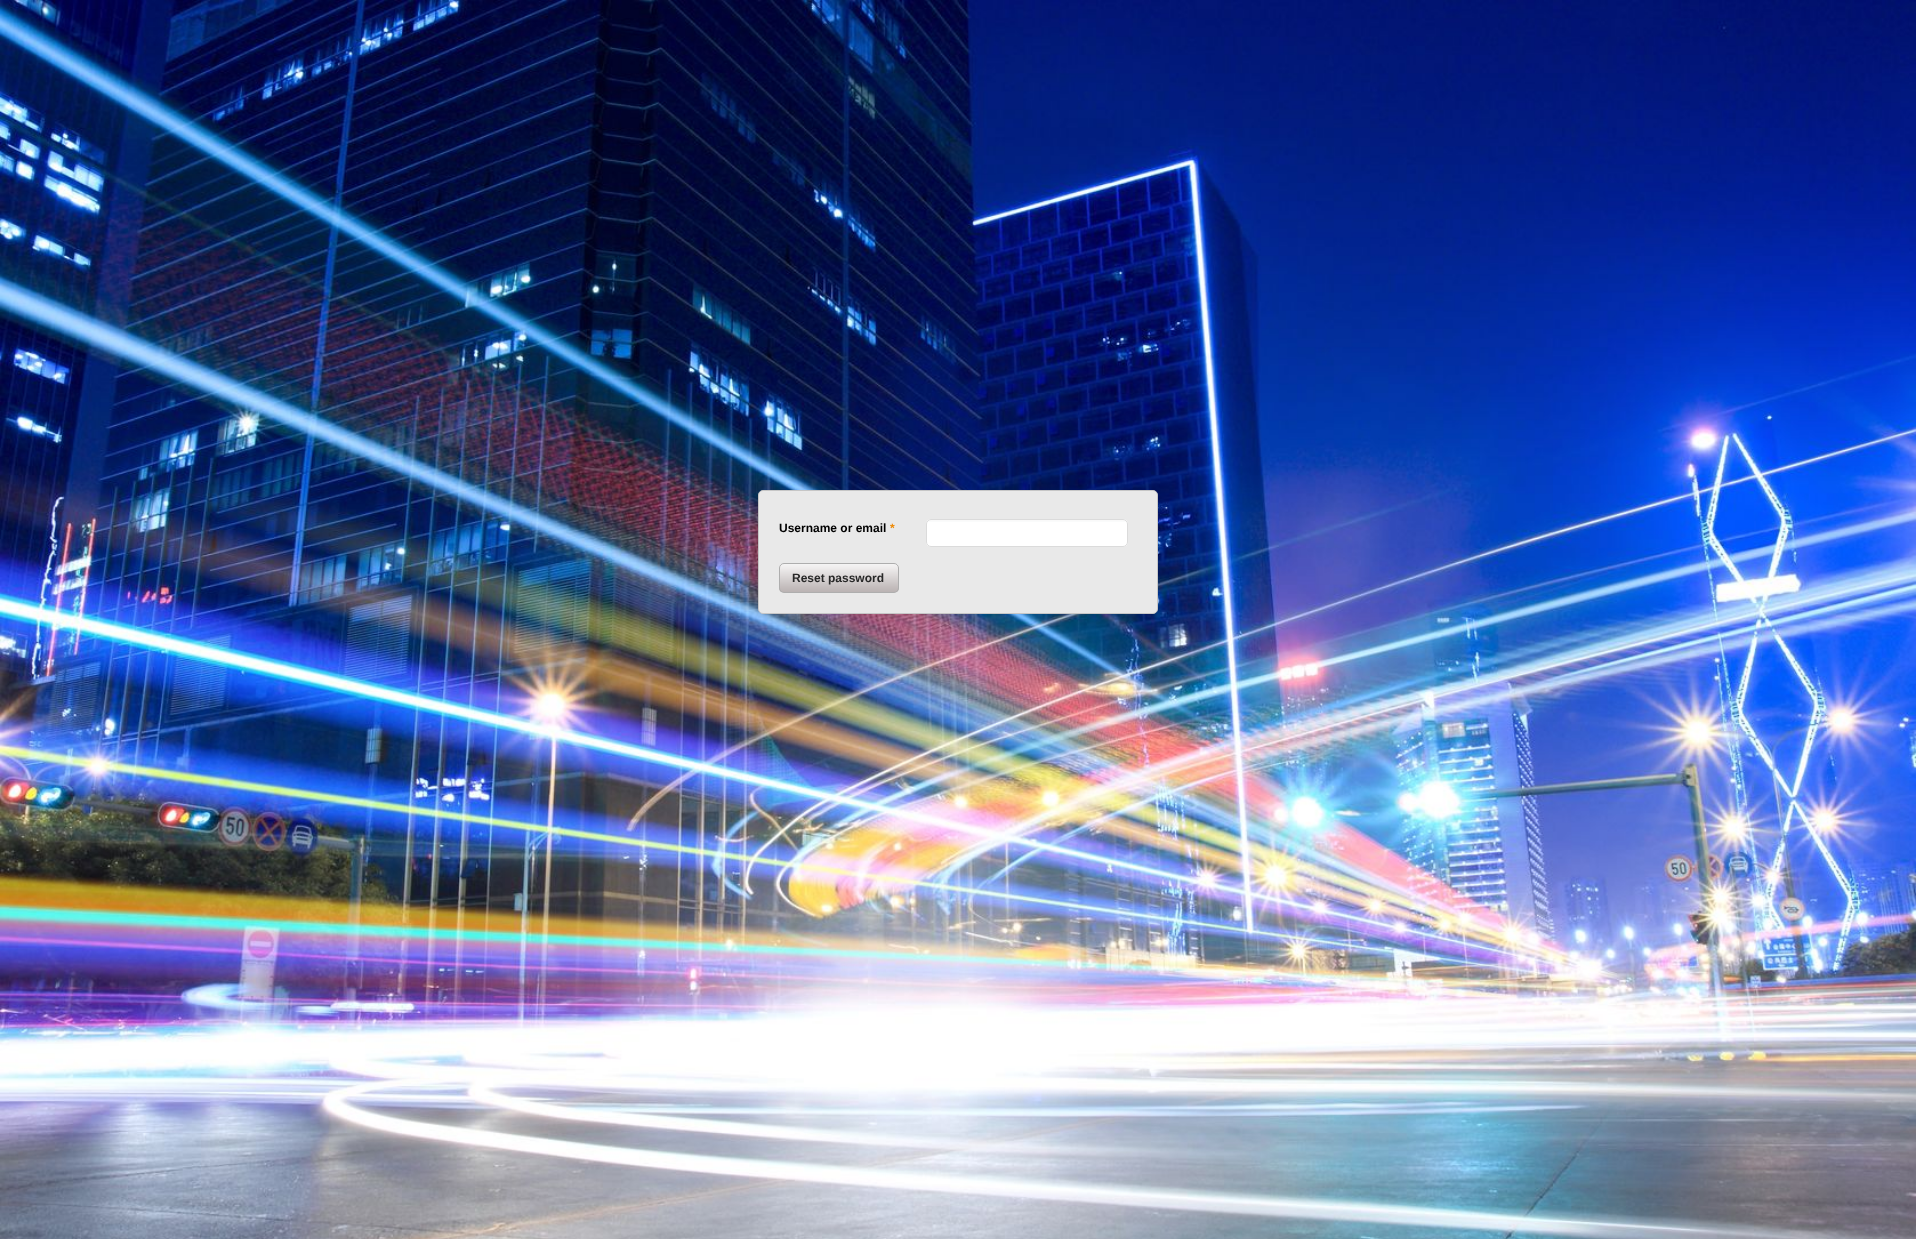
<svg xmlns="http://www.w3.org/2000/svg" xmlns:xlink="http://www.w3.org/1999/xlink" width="1916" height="1239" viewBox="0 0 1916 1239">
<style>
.cls-1{font:bold 12px Liberation Sans;fill:#000000}
.cls-2{font:bold 12px Liberation Sans;fill:#ee8a07}
.cls-3{font:bold 12px Liberation Sans;fill:#282828}
</style>
<rect width="100%" height="100%" fill="#ffffff"/>
<image xlink:href="image0.png" x="0" y="0" width="1916" height="1239"/>
<rect fill="#e9e9e9" stroke="#c6c6c6" x="758.5" y="490.5" width="399" height="123" rx="4.5"/>
<rect fill="#ffffff" x="926" y="519" width="202" height="28" rx="5"/>
<image xlink:href="image1.png" x="927" y="520" width="200" height="2"/>
<rect fill="none" stroke="#dbdbdb" x="926.5" y="519.5" width="201" height="27" rx="4.5"/>
<image xlink:href="image2.png" x="779" y="564" width="120" height="28"/>
<rect fill="none" stroke="#aeaeae" x="779.5" y="563.5" width="119" height="29" rx="4.5"/>
<text class="cls-1" x="779" y="532">Username or email</text>
<text class="cls-2" x="890" y="532">*</text>
<text class="cls-3" x="792" y="582">Reset password</text>
</svg>
